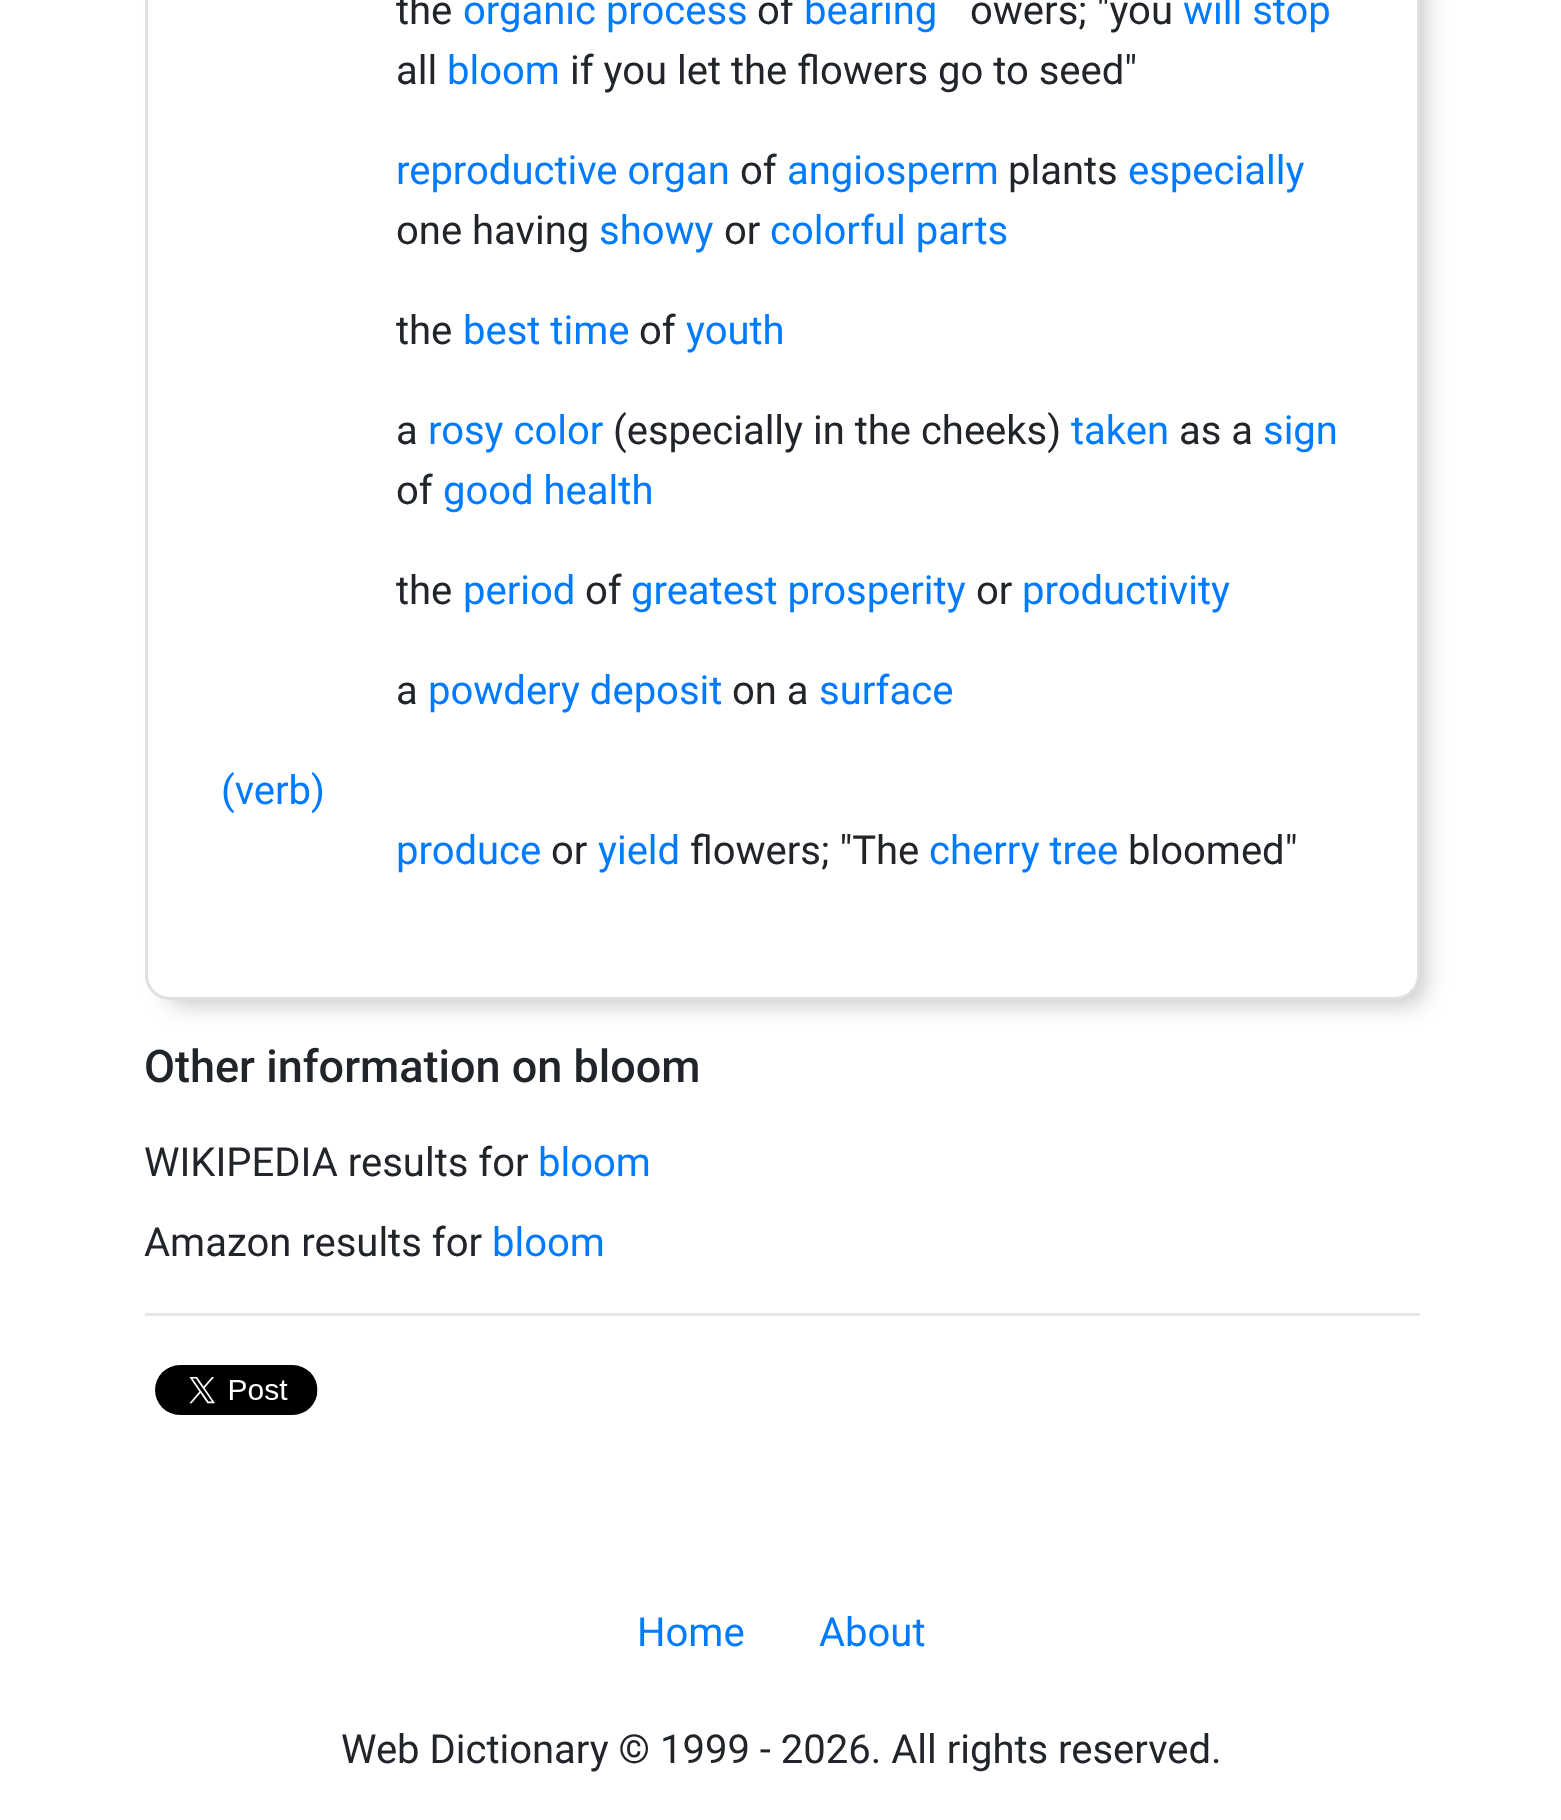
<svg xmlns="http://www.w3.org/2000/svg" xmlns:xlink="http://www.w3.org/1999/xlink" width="1561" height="1820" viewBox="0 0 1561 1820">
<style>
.cls-1{font:40px Roboto;fill:#212529}
.cls-2{font:40px Roboto;fill:#007bff}
.cls-3{font:500 45px Roboto;fill:#212529}
</style>
<rect width="100%" height="100%" fill="#ffffff"/>
<rect fill="#000000" fill-opacity="0.25" filter="blur(12.5px)" x="168" y="-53" width="1255" height="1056" rx="15"/>
<rect fill="#ffffff" x="145" y="-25" width="1275" height="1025" rx="25"/>
<rect fill="none" stroke="#000000" stroke-opacity="0.12" stroke-width="3" x="146.5" y="-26.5" width="1272" height="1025" rx="23.5"/>
<rect fill="#e6e6e6" x="145" y="1313" width="1275" height="3"/>
<image xlink:href="image0.png" x="155" y="1365" width="163" height="50"/>
<text class="cls-1" x="396" y="24">the</text>
<text class="cls-2" x="463" y="24">organic process</text>
<text class="cls-1" x="757" y="24">of</text>
<text class="cls-2" x="804" y="24">bearing</text>
<text class="cls-1" x="970" y="24">owers; "you</text>
<text class="cls-2" x="1183" y="24">will stop</text>
<text class="cls-1" x="396" y="84">all</text>
<text class="cls-2" x="447" y="84">bloom</text>
<text class="cls-1" x="570" y="84">if you let the flowers go to seed"</text>
<text class="cls-2" x="396" y="184">reproductive organ</text>
<text class="cls-1" x="740" y="184">of</text>
<text class="cls-2" x="787" y="184">angiosperm</text>
<text class="cls-1" x="1008" y="184">plants</text>
<text class="cls-2" x="1128" y="184">especially</text>
<text class="cls-1" x="396" y="244">one having</text>
<text class="cls-2" x="599" y="244">showy</text>
<text class="cls-1" x="724" y="244">or</text>
<text class="cls-2" x="770" y="244">colorful parts</text>
<text class="cls-1" x="396" y="344">the</text>
<text class="cls-2" x="463" y="344">best time</text>
<text class="cls-1" x="639" y="344">of</text>
<text class="cls-2" x="686" y="344">youth</text>
<text class="cls-1" x="396" y="444">a</text>
<text class="cls-2" x="428" y="444">rosy color</text>
<text class="cls-1" x="613" y="444">(especially in the cheeks)</text>
<text class="cls-2" x="1071" y="444">taken</text>
<text class="cls-1" x="1179" y="444">as a</text>
<text class="cls-2" x="1263" y="444">sign</text>
<text class="cls-1" x="396" y="504">of</text>
<text class="cls-2" x="443" y="504">good health</text>
<text class="cls-1" x="396" y="604">the</text>
<text class="cls-2" x="463" y="604">period</text>
<text class="cls-1" x="585" y="604">of</text>
<text class="cls-2" x="631" y="604">greatest prosperity</text>
<text class="cls-1" x="976" y="604">or</text>
<text class="cls-2" x="1022" y="604">productivity</text>
<text class="cls-1" x="396" y="704">a</text>
<text class="cls-2" x="428" y="704">powdery deposit</text>
<text class="cls-1" x="732" y="704">on a</text>
<text class="cls-2" x="819" y="704">surface</text>
<text class="cls-2" x="221" y="804">(verb)</text>
<text class="cls-2" x="396" y="864">produce</text>
<text class="cls-1" x="551" y="864">or</text>
<text class="cls-2" x="598" y="864">yield</text>
<text class="cls-1" x="690" y="864">flowers; "The</text>
<text class="cls-2" x="929" y="864">cherry tree</text>
<text class="cls-1" x="1128" y="864">bloomed"</text>
<text class="cls-3" x="144" y="1082">Other information on bloom</text>
<text class="cls-1" x="144" y="1176">WIKIPEDIA results for</text>
<text class="cls-2" x="538" y="1176">bloom</text>
<text class="cls-1" x="144" y="1256">Amazon results for</text>
<text class="cls-2" x="492" y="1256">bloom</text>
<text class="cls-2" x="637" y="1646">Home</text>
<text class="cls-2" x="819" y="1646">About</text>
<text class="cls-1" x="341" y="1763">Web Dictionary © 1999 - 2026. All rights reserved.</text>
</svg>
